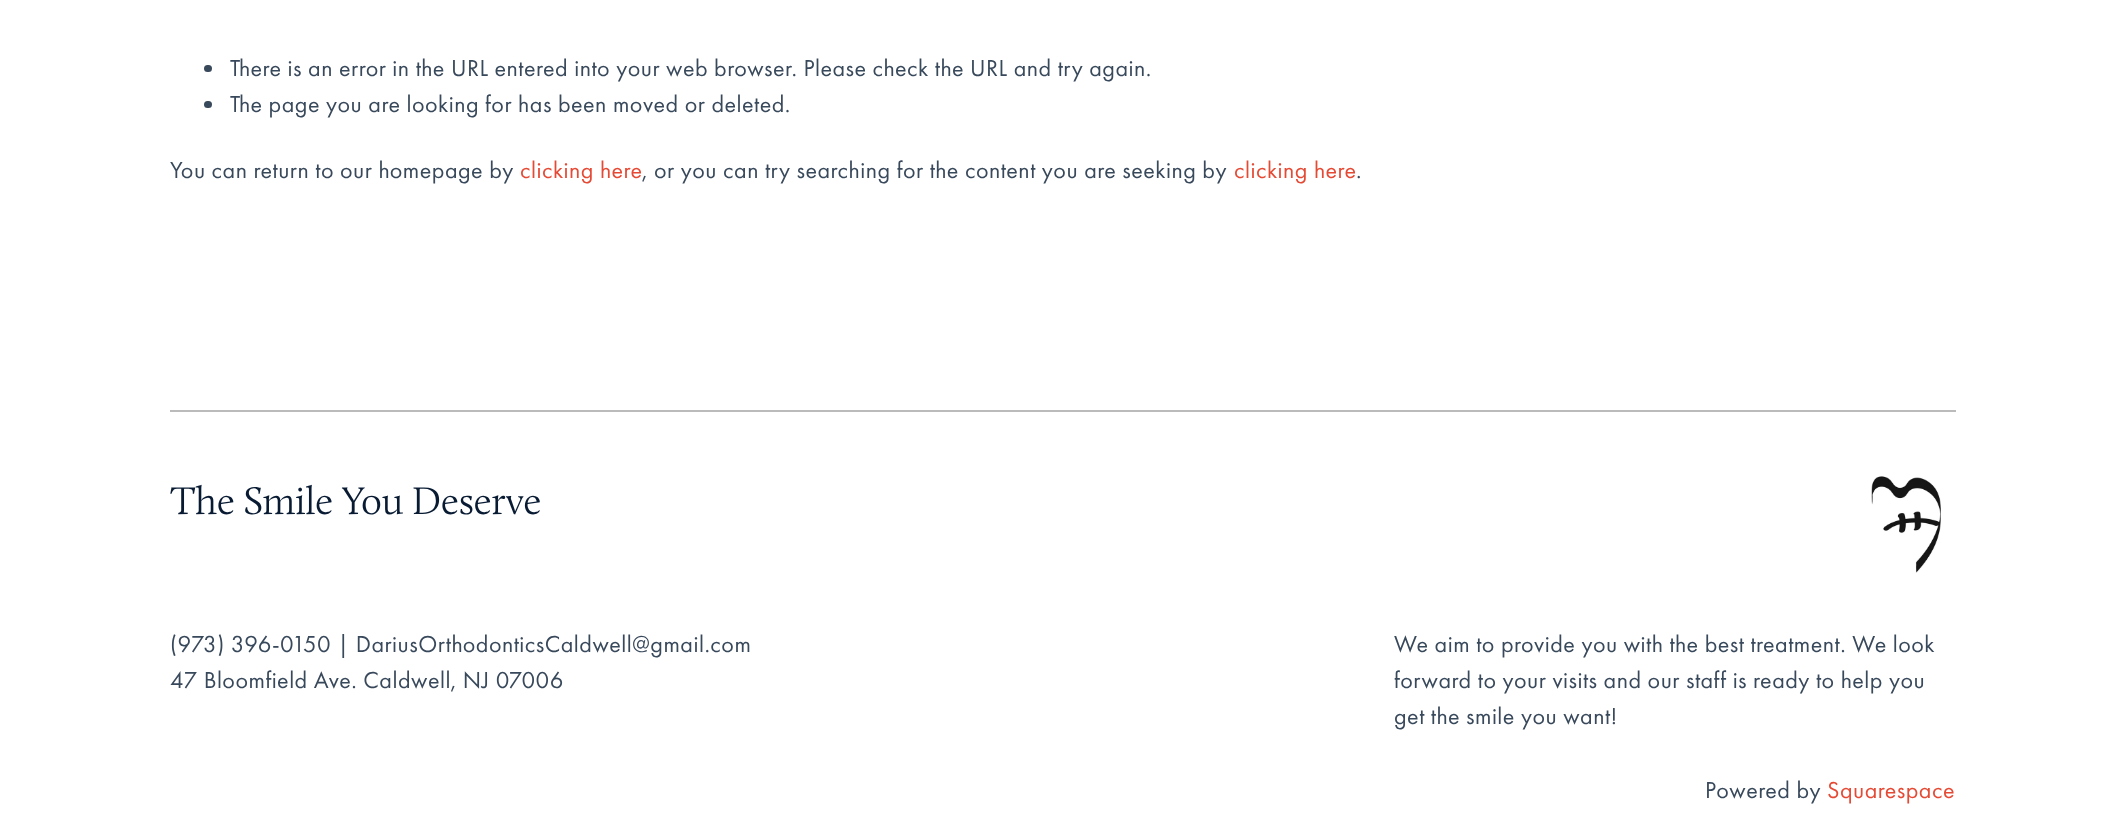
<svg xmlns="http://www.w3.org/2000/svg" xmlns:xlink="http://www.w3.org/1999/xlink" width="2125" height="835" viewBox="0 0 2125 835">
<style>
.cls-1{font:24px Futura PT;letter-spacing:0.48px;fill:#39495c}
.cls-2{font:24px Futura PT;letter-spacing:0.48px;fill:#e54a35}
.cls-3{font:300 39.75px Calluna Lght;letter-spacing:-0.4px;fill:#081b33}
</style>
<rect width="100%" height="100%" fill="#ffffff"/>
<rect fill="#39495c" x="204" y="65" width="8" height="7" rx="3.5"/>
<rect fill="#39495c" x="204" y="101" width="8" height="7" rx="3.5"/>
<rect fill="#bbbbbb" x="170" y="410" width="1786" height="2"/>
<image xlink:href="image0.png" x="1871" y="476" width="70" height="97"/>
<text class="cls-1"><tspan x="230" y="76">There is an error in the URL entered into your web browser. Please check the URL and try again.</tspan><tspan x="230" y="112">The page you are looking for has been moved or deleted.</tspan></text>
<text class="cls-1" x="170" y="178">You can return to our homepage by</text>
<text class="cls-2" x="520" y="178">clicking here</text>
<text class="cls-1" x="642" y="178">, or you can try searching for the content you are seeking by</text>
<text class="cls-2" x="1234" y="178">clicking here</text>
<text class="cls-1" x="1356" y="178">.</text>
<text class="cls-3" x="170" y="514">The Smile You Deserve</text>
<text class="cls-1"><tspan x="170" y="652">(973) 396-0150 | DariusOrthodonticsCaldwell@gmail.com</tspan><tspan x="170" y="688">47 Bloomfield Ave. Caldwell, NJ 07006</tspan></text>
<text class="cls-1"><tspan x="1394" y="652">We aim to provide you with the best treatment. We look</tspan><tspan x="1394" y="688">forward to your visits and our staff is ready to help you</tspan><tspan x="1394" y="724">get the smile you want!</tspan></text>
<text class="cls-1" x="1705" y="798">Powered by</text>
<text class="cls-2" x="1827" y="798">Squarespace</text>
</svg>
